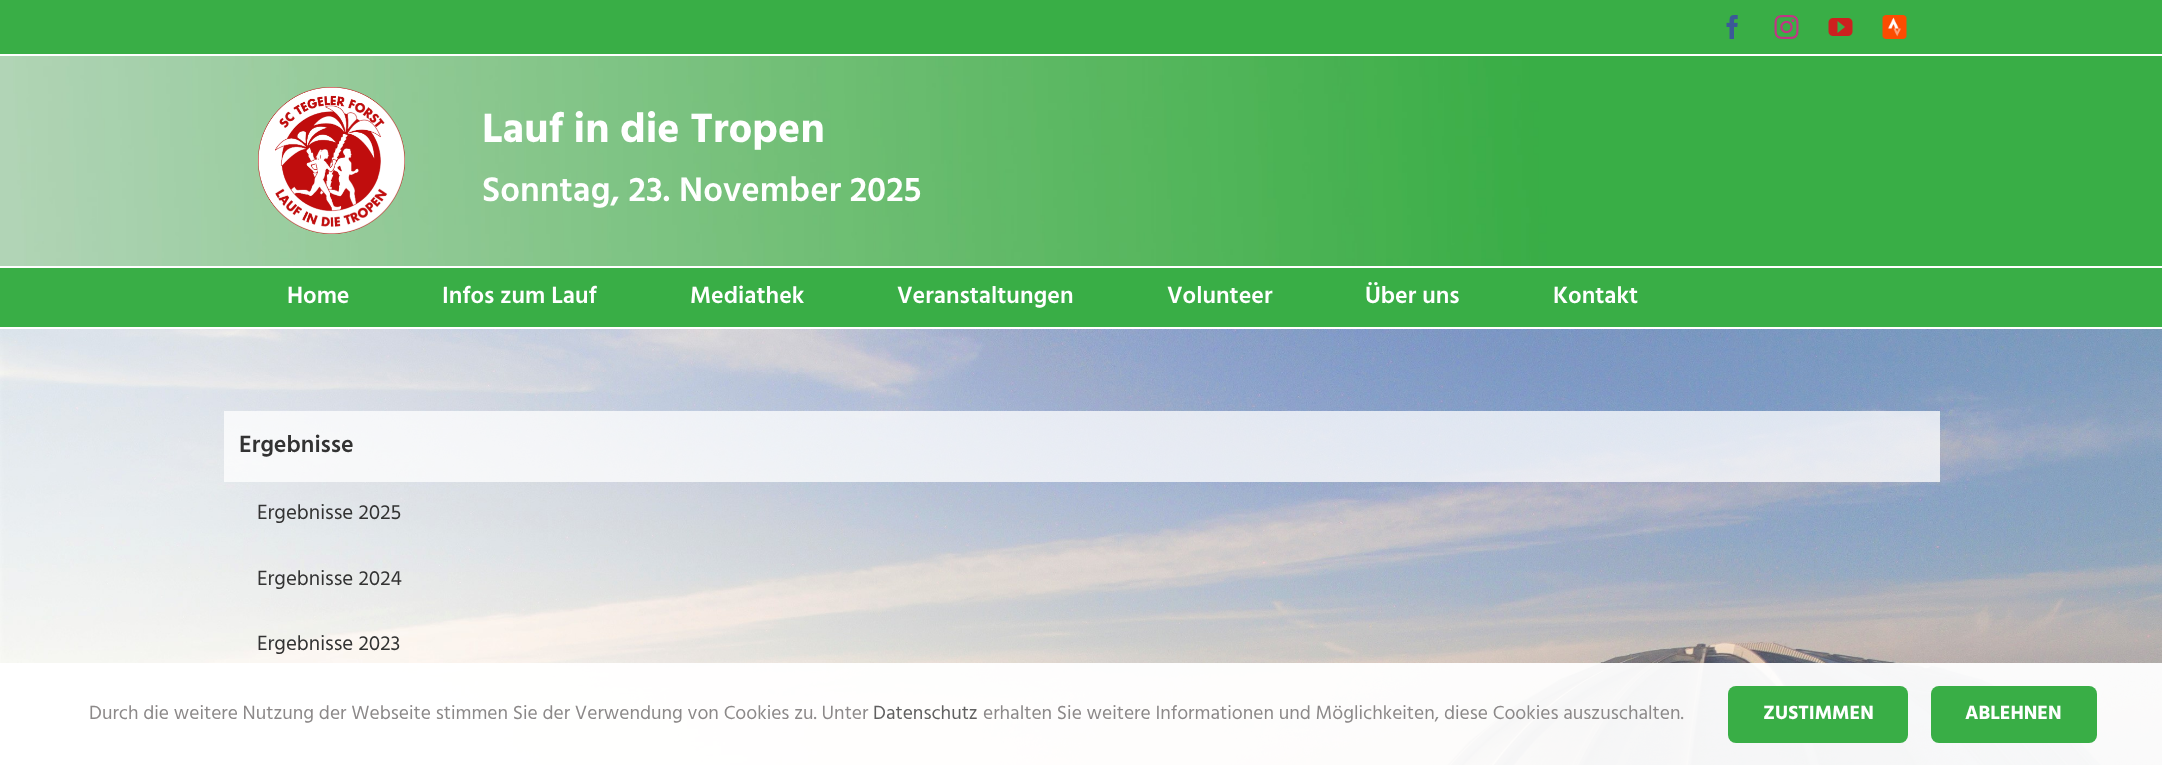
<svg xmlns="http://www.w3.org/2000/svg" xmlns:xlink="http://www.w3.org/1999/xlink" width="2162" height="765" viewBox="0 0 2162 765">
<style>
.cls-1{font:bold 42px Hind;fill:#ffffff}
.cls-2{font:600 35px Hind;fill:#ffffff}
.cls-3{font:600 24px Hind;fill:#ffffff}
.cls-4{font:600 24px Hind;fill:#333333}
.cls-5{font:21px Hind;fill:#333333}
.cls-6{font:19.5px Hind;fill:#8c8989}
.cls-7{font:19.5px Hind;fill:#606060}
.cls-8{font:bold 19.5px Hind;fill:#ffffff}
</style>
<rect width="100%" height="100%" fill="#ffffff"/>
<rect fill="#39ae46" x="0" y="0" width="2162" height="54"/>
<image xlink:href="image0.png" x="1726" y="15" width="12" height="24"/>
<image xlink:href="image1.png" x="1774" y="15" width="25" height="24"/>
<image xlink:href="image2.png" x="1828" y="18" width="25" height="18"/>
<image xlink:href="image3.png" x="1882" y="15" width="25" height="24"/>
<image xlink:href="image4.png" x="0" y="56" width="2162" height="210"/>
<image xlink:href="image5.png" x="258" y="87" width="147" height="147"/>
<rect fill="#39ae46" x="0" y="268" width="2162" height="59"/>
<image xlink:href="image6.png" x="0" y="329" width="2162" height="436"/>
<rect fill="#ffffff" fill-opacity="0.75" x="224" y="411" width="1716" height="71"/>
<rect fill="#ffffff" fill-opacity="0.95" x="0" y="663" width="2162" height="102"/>
<rect fill="#39ae46" x="1728" y="686" width="180" height="57" rx="8"/>
<rect fill="#39ae46" x="1931" y="686" width="166" height="57" rx="8"/>
<text class="cls-1" x="482" y="142">Lauf in die Tropen</text>
<text class="cls-2" x="482" y="201">Sonntag, 23. November 2025</text>
<text class="cls-3" x="287" y="303">Home</text>
<text class="cls-3" x="442" y="303">Infos zum Lauf</text>
<text class="cls-3" x="690" y="303">Mediathek</text>
<text class="cls-3" x="897" y="303">Veranstaltungen</text>
<text class="cls-3" x="1167" y="303">Volunteer</text>
<text class="cls-3" x="1365" y="303">Über uns</text>
<text class="cls-3" x="1553" y="303">Kontakt</text>
<text class="cls-4" x="239" y="452">Ergebnisse</text>
<text class="cls-5" x="257" y="519">Ergebnisse 2025</text>
<text class="cls-5" x="257" y="585">Ergebnisse 2024</text>
<text class="cls-5" x="257" y="650">Ergebnisse 2023</text>
<text class="cls-6" x="89" y="719">Durch die weitere Nutzung der Webseite stimmen Sie der Verwendung von Cookies zu. Unter</text>
<text class="cls-7" x="873" y="719">Datenschutz</text>
<text class="cls-6" x="983" y="719">erhalten Sie weitere Informationen und Möglichkeiten, diese Cookies auszuschalten.</text>
<text class="cls-8" x="1763" y="719">ZUSTIMMEN</text>
<text class="cls-8" x="1965" y="719">ABLEHNEN</text>
</svg>
